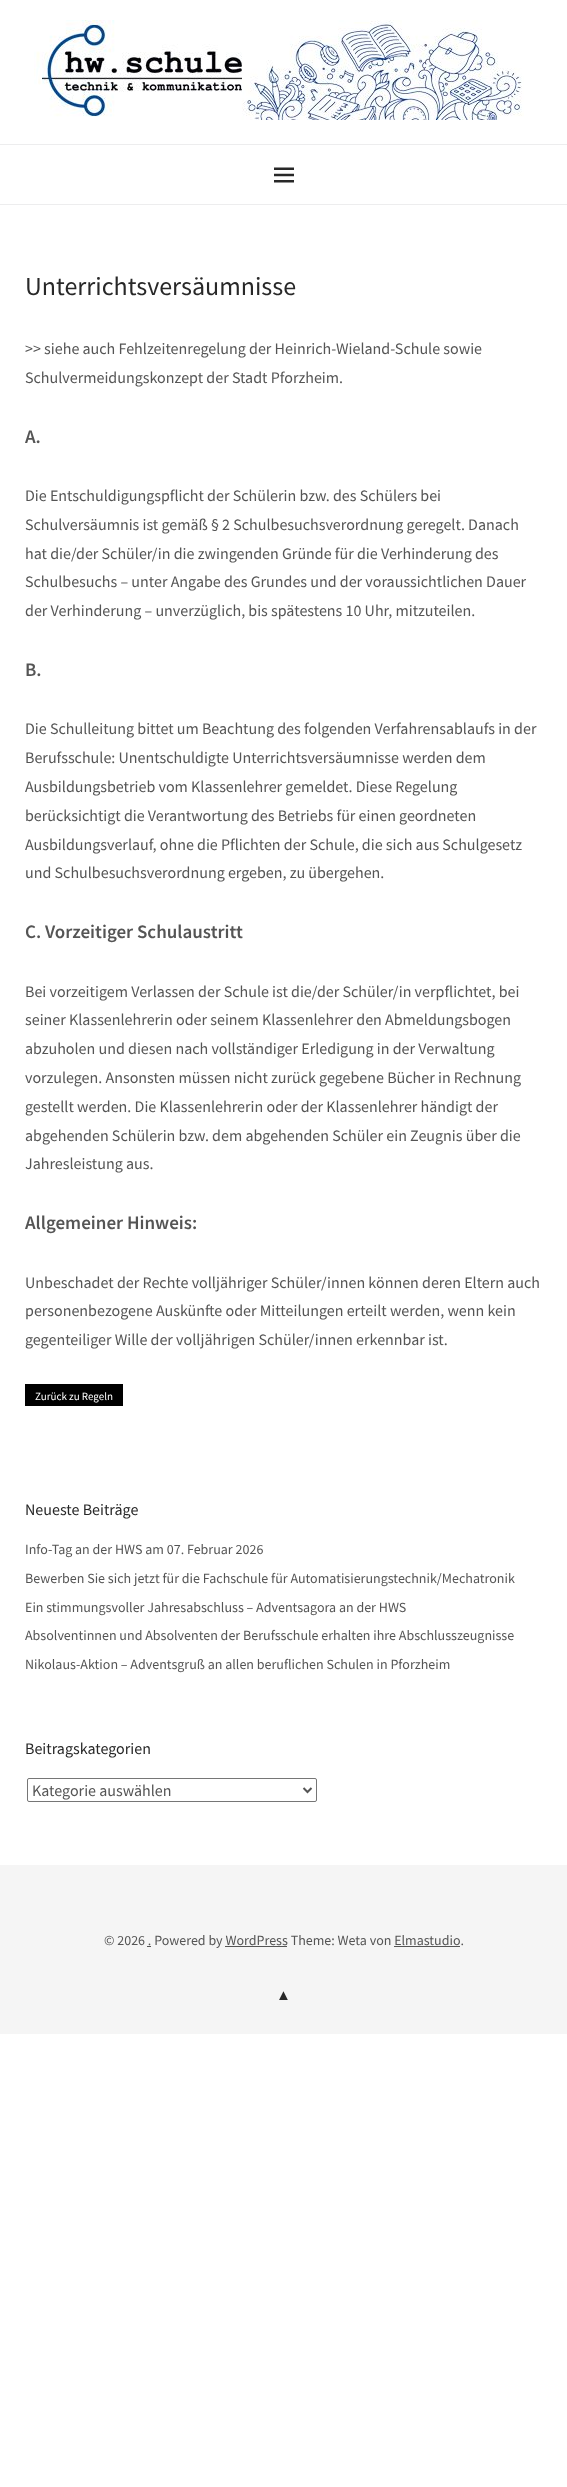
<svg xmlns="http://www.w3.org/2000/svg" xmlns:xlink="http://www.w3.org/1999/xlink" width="567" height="2487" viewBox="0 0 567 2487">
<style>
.cls-1{font:26px Source Sans Pro;fill:#282828}
.cls-2{font:16px Source Sans Pro;fill:#555555}
.cls-3{font:600 19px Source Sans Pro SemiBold;fill:#555555}
.cls-4{font:11px Source Sans Pro;fill:#ffffff}
.cls-5{font:16px Source Sans Pro;fill:#282828}
.cls-6{font:14px Source Sans Pro;fill:#555555}
.cls-7{font:15px Liberation Sans;fill:#282828}
</style>
<rect width="100%" height="100%" fill="#ffffff"/>
<rect fill="#ededee" x="0" y="144" width="567" height="1"/>
<image xlink:href="image0.png" x="34" y="20" width="490" height="100"/>
<rect fill="#ededee" x="0" y="204" width="567" height="1"/>
<image xlink:href="image1.png" x="274" y="167" width="20" height="16"/>
<rect fill="#000000" x="25" y="1384" width="98" height="22"/>
<rect fill="none" stroke="#767676" x="27.5" y="1778.5" width="289" height="23" rx="1.5"/>
<path fill="none" stroke="#555555" stroke-width="2" d="M303.5 1788L307.5 1792L311.5 1788"/>
<rect fill="#f5f5f5" x="0" y="1865" width="567" height="169"/>
<rect fill="#555555" x="147" y="1946" width="4" height="1"/>
<rect fill="#555555" x="225" y="1946" width="62" height="1"/>
<rect fill="#555555" x="394" y="1946" width="66" height="1"/>
<text class="cls-1" x="25" y="295">Unterrichtsversäumnisse</text>
<text class="cls-2"><tspan x="25" y="354">&gt;&gt; siehe auch Fehlzeitenregelung der Heinrich-Wieland-Schule sowie</tspan><tspan x="25" y="383">Schulvermeidungskonzept der Stadt Pforzheim.</tspan></text>
<text class="cls-3" x="25" y="443">A.</text>
<text class="cls-2"><tspan x="25" y="501">Die Entschuldigungspflicht der Schülerin bzw. des Schülers bei</tspan><tspan x="25" y="530">Schulversäumnis ist gemäß § 2 Schulbesuchsverordnung geregelt. Danach</tspan><tspan x="25" y="559">hat die/der Schüler/in die zwingenden Gründe für die Verhinderung des</tspan><tspan x="25" y="587">Schulbesuchs – unter Angabe des Grundes und der voraussichtlichen Dauer</tspan><tspan x="25" y="616">der Verhinderung – unverzüglich, bis spätestens 10 Uhr, mitzuteilen.</tspan></text>
<text class="cls-3" x="25" y="676">B.</text>
<text class="cls-2"><tspan x="25" y="734">Die Schulleitung bittet um Beachtung des folgenden Verfahrensablaufs in der</tspan><tspan x="25" y="763">Berufsschule: Unentschuldigte Unterrichtsversäumnisse werden dem</tspan><tspan x="25" y="792">Ausbildungsbetrieb vom Klassenlehrer gemeldet. Diese Regelung</tspan><tspan x="25" y="821">berücksichtigt die Verantwortung des Betriebs für einen geordneten</tspan><tspan x="25" y="850">Ausbildungsverlauf, ohne die Pflichten der Schule, die sich aus Schulgesetz</tspan><tspan x="25" y="878">und Schulbesuchsverordnung ergeben, zu übergehen.</tspan></text>
<text class="cls-3" x="25" y="938">C. Vorzeitiger Schulaustritt</text>
<text class="cls-2"><tspan x="25" y="997">Bei vorzeitigem Verlassen der Schule ist die/der Schüler/in verpflichtet, bei</tspan><tspan x="25" y="1025">seiner Klassenlehrerin oder seinem Klassenlehrer den Abmeldungsbogen</tspan><tspan x="25" y="1054">abzuholen und diesen nach vollständiger Erledigung in der Verwaltung</tspan><tspan x="25" y="1083">vorzulegen. Ansonsten müssen nicht zurück gegebene Bücher in Rechnung</tspan><tspan x="25" y="1112">gestellt werden. Die Klassenlehrerin oder der Klassenlehrer händigt der</tspan><tspan x="25" y="1141">abgehenden Schülerin bzw. dem abgehenden Schüler ein Zeugnis über die</tspan><tspan x="25" y="1169">Jahresleistung aus.</tspan></text>
<text class="cls-3" x="25" y="1229">Allgemeiner Hinweis:</text>
<text class="cls-2"><tspan x="25" y="1288">Unbeschadet der Rechte volljähriger Schüler/innen können deren Eltern auch</tspan><tspan x="25" y="1316">personenbezogene Auskünfte oder Mitteilungen erteilt werden, wenn kein</tspan><tspan x="25" y="1345">gegenteiliger Wille der volljährigen Schüler/innen erkennbar ist.</tspan></text>
<text class="cls-4" x="35" y="1400">Zurück zu Regeln</text>
<text class="cls-5" x="25" y="1515">Neueste Beiträge</text>
<text class="cls-6" x="25" y="1554">Info-Tag an der HWS am 07. Februar 2026</text>
<text class="cls-6" x="25" y="1583">Bewerben Sie sich jetzt für die Fachschule für Automatisierungstechnik/Mechatronik</text>
<text class="cls-6" x="25" y="1612">Ein stimmungsvoller Jahresabschluss – Adventsagora an der HWS</text>
<text class="cls-6" x="25" y="1640">Absolventinnen und Absolventen der Berufsschule erhalten ihre Abschlusszeugnisse</text>
<text class="cls-6" x="25" y="1669">Nikolaus-Aktion – Adventsgruß an allen beruflichen Schulen in Pforzheim</text>
<text class="cls-5" x="25" y="1754">Beitragskategorien</text>
<text class="cls-2" x="32" y="1796">Kategorie auswählen</text>
<text class="cls-6" x="104" y="1945">© 2026 . Powered by WordPress Theme: Weta von Elmastudio.</text>
<text class="cls-7" x="276" y="2000">▲</text>
</svg>
